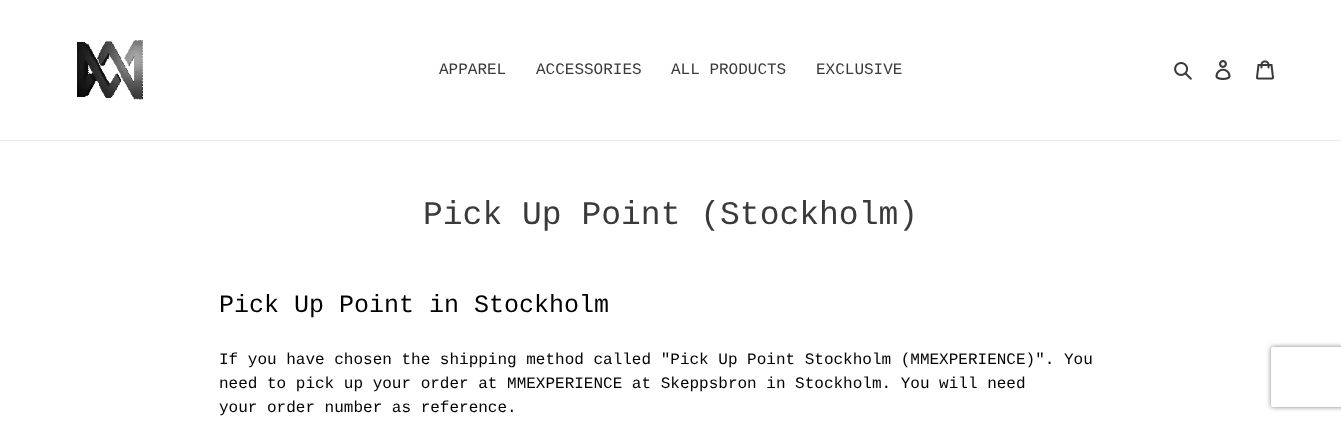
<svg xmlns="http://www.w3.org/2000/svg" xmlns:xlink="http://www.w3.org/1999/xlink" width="1341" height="421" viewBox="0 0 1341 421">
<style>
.cls-1{font:16px Liberation Mono;fill:#3a3a3a}
.cls-2{font:33px Liberation Mono;fill:#3a3a3a}
.cls-3{font:25px Liberation Mono;fill:#000000}
.cls-4{font:16px Liberation Mono;fill:#000000}
</style>
<defs>
<clipPath id="clip1"><path d="M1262 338H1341V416H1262ZM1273 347H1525C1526 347 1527 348 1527 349V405C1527 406 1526 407 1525 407H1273C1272 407 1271 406 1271 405V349C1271 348 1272 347 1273 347Z" clip-rule="evenodd"/></clipPath>
</defs>
<rect width="100%" height="100%" fill="#ffffff"/>
<rect fill="#ebebeb" x="0" y="140" width="1341" height="1"/>
<image xlink:href="image0.png" x="77" y="40" width="66" height="60"/>
<image xlink:href="image1.png" x="1174" y="62" width="18" height="18"/>
<image xlink:href="image2.png" x="1215" y="60" width="16" height="20"/>
<image xlink:href="image3.png" x="1256" y="60" width="18" height="20"/>
<g clip-path="url(#clip1)">
<rect fill="#808080" filter="blur(2.5px)" x="1271" y="347" width="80" height="60" rx="2"/>
</g>
<text class="cls-1" x="439" y="74">APPAREL</text>
<text class="cls-1" x="536" y="74">ACCESSORIES</text>
<text class="cls-1" x="671" y="74">ALL PRODUCTS</text>
<text class="cls-1" x="816" y="74">EXCLUSIVE</text>
<text class="cls-2" x="423" y="224">Pick Up Point (Stockholm)</text>
<text class="cls-3" x="219" y="312">Pick Up Point in Stockholm</text>
<text class="cls-4"><tspan x="219" y="364">If you have chosen the shipping method called "Pick Up Point Stockholm (MMEXPERIENCE)". You</tspan><tspan x="219" y="388">need to pick up your order at MMEXPERIENCE at Skeppsbron in Stockholm. You will need</tspan><tspan x="219" y="412">your order number as reference.</tspan></text>
</svg>
